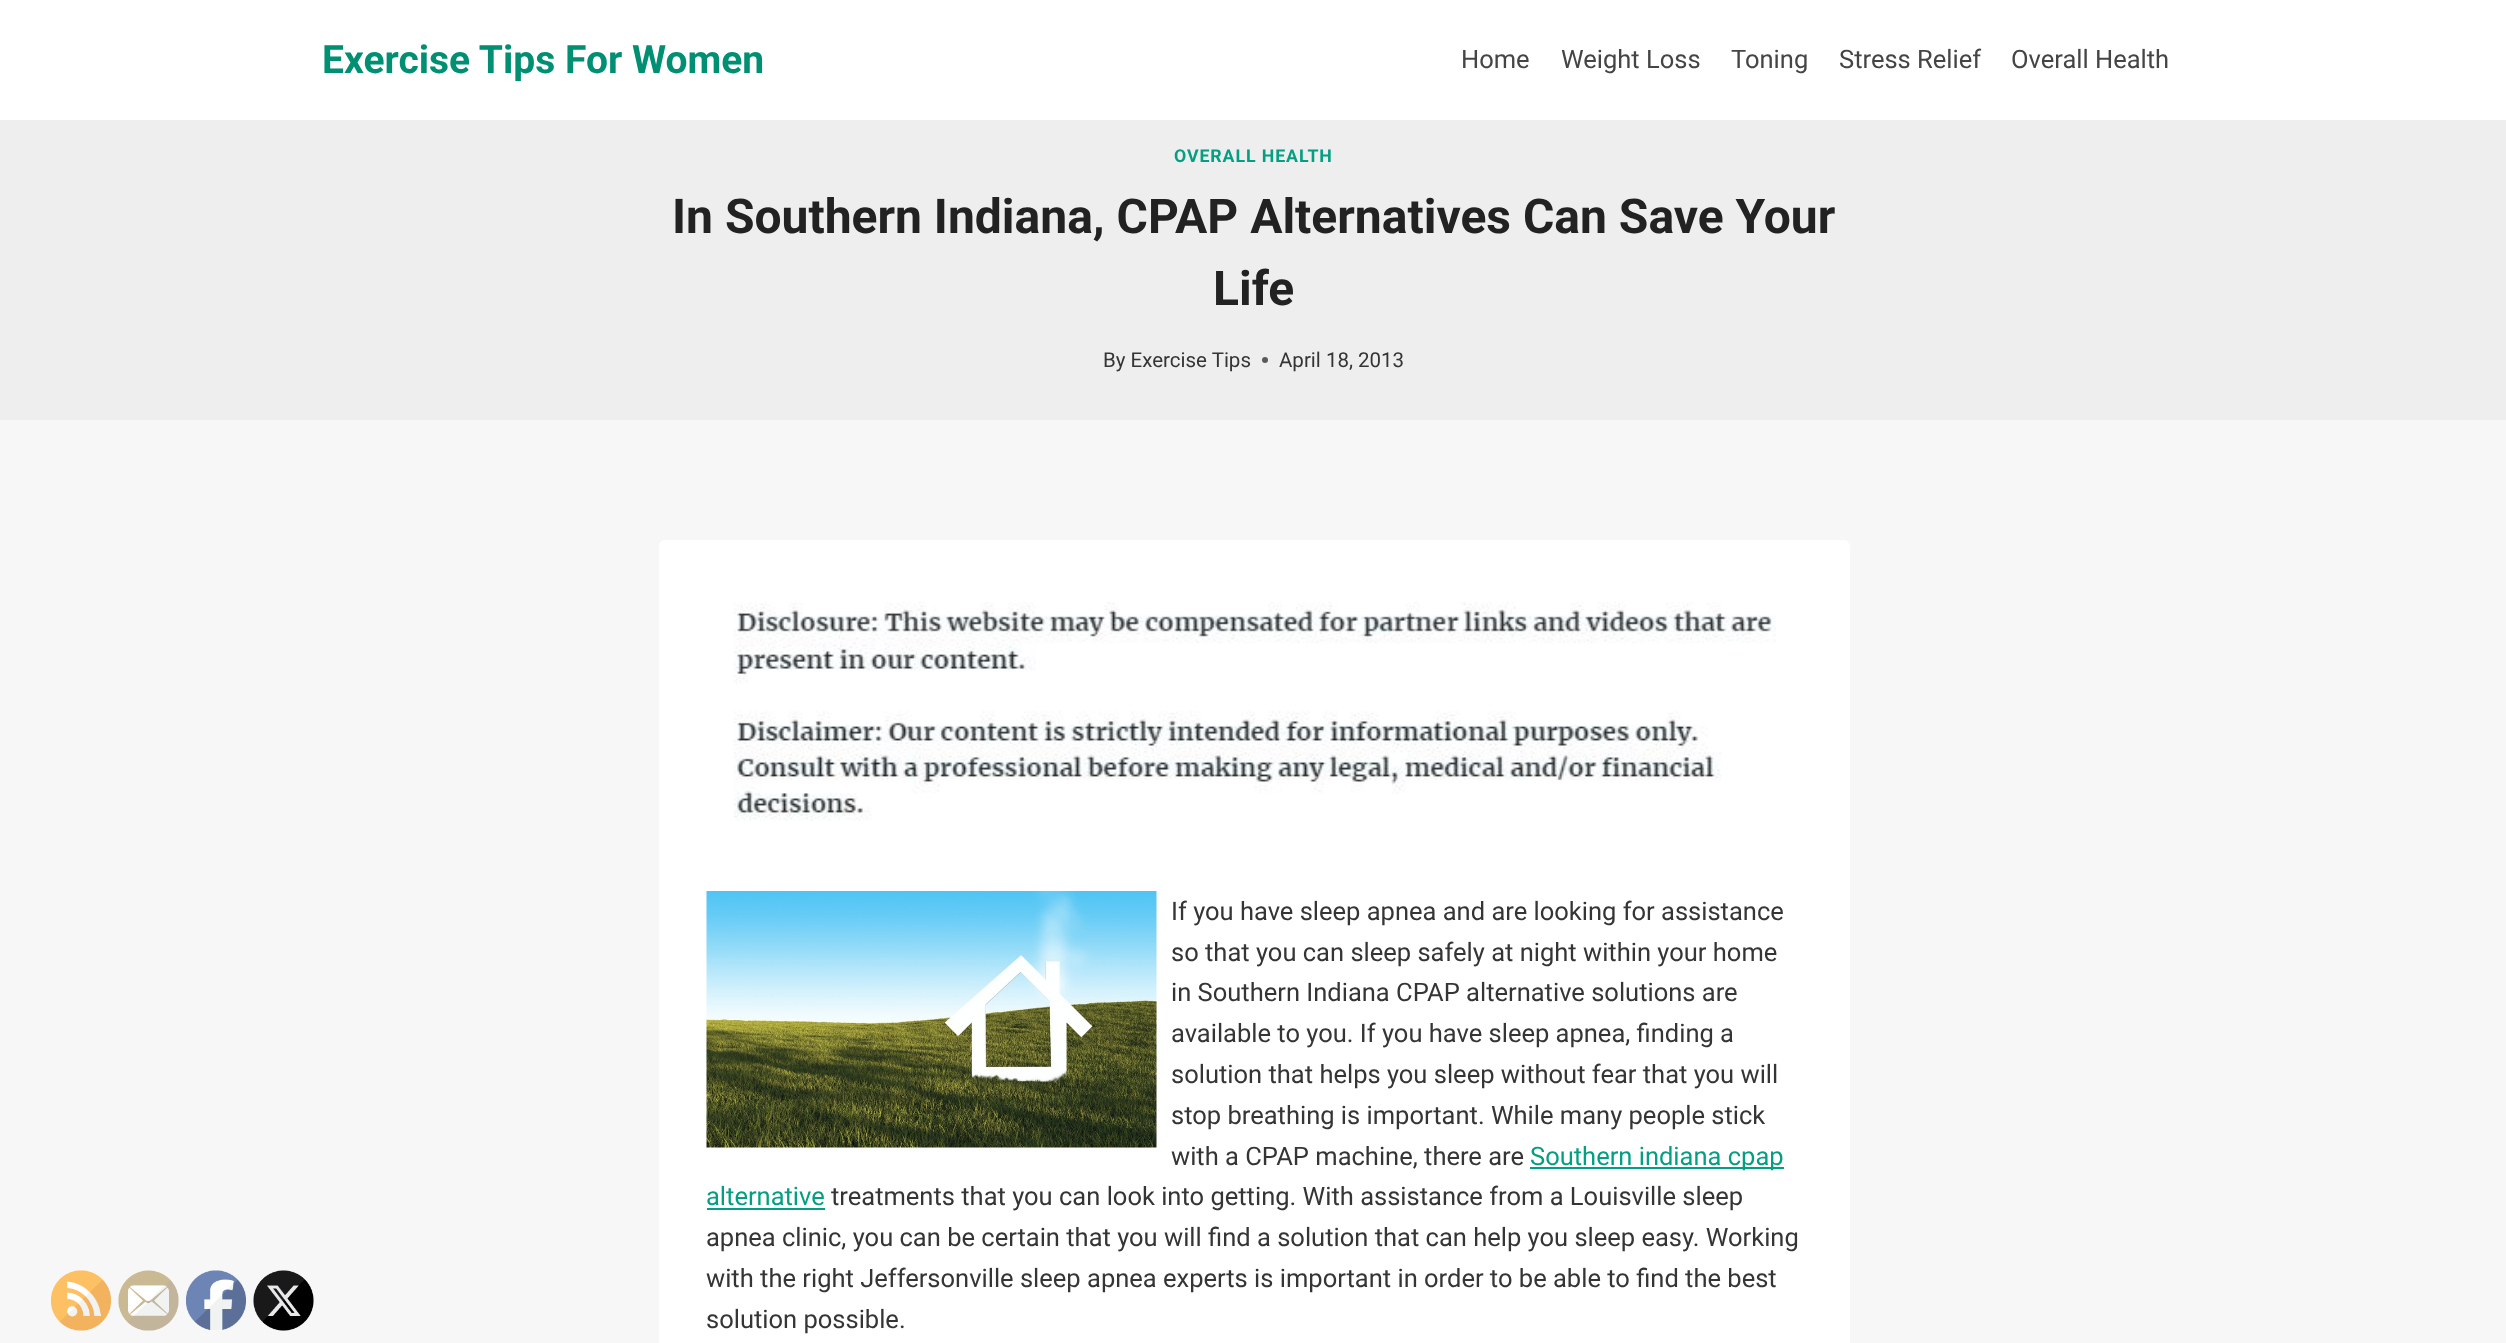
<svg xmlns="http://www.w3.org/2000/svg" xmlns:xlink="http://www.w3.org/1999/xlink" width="2506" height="1343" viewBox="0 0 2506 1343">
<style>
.cls-1{font:bold 39px Roboto;fill:#008f72}
.cls-2{font:25.5px Roboto;fill:#454545}
.cls-3{font:bold 17.75px Roboto;letter-spacing:0.9px;fill:#049f82}
.cls-4{font:bold 48px Roboto;fill:#222222}
.cls-5{font:20.5px Roboto;fill:#353535}
.cls-6{font:25.5px Roboto;fill:#353535}
.cls-7{font:25.5px Roboto;fill:#049f82}
</style>
<rect width="100%" height="100%" fill="#f7f7f7"/>
<image xlink:href="image0.png" x="51" y="1270" width="60" height="61"/>
<image xlink:href="image1.png" x="118" y="1270" width="61" height="61"/>
<image xlink:href="image2.png" x="186" y="1270" width="60" height="60"/>
<image xlink:href="image3.png" x="253" y="1270" width="61" height="61"/>
<rect fill="#ffffff" x="0" y="0" width="2506" height="120"/>
<rect fill="#eeeeee" x="0" y="120" width="2506" height="300"/>
<circle fill="#5a5a5a" cx="1265" cy="360" r="3"/>
<rect fill="#ffffff" x="659" y="540" width="1191" height="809" rx="6"/>
<image xlink:href="image4.png" x="733" y="602" width="1043" height="219"/>
<image xlink:href="image5.png" x="706" y="891" width="451" height="257"/>
<rect fill="#049f82" x="1530" y="1167" width="254" height="2"/>
<rect fill="#049f82" x="707" y="1208" width="118" height="2"/>
<text class="cls-1" x="322" y="73">Exercise Tips For Women</text>
<text class="cls-2" x="1461" y="68">Home</text>
<text class="cls-2" x="1561" y="68">Weight Loss</text>
<text class="cls-2" x="1731" y="68">Toning</text>
<text class="cls-2" x="1839" y="68">Stress Relief</text>
<text class="cls-2" x="2011" y="68">Overall Health</text>
<text class="cls-3" x="1174" y="162">OVERALL HEALTH</text>
<text class="cls-4" x="672" y="233">In Southern Indiana, CPAP Alternatives Can Save Your</text>
<text class="cls-4" x="1213" y="305">Life</text>
<text class="cls-5" x="1103" y="367">By Exercise Tips</text>
<text class="cls-5" x="1279" y="367">April 18, 2013</text>
<text class="cls-6"><tspan x="1171" y="920">If you have sleep apnea and are looking for assistance</tspan><tspan x="1171" y="961">so that you can sleep safely at night within your home</tspan><tspan x="1171" y="1001">in Southern Indiana CPAP alternative solutions are</tspan><tspan x="1171" y="1042">available to you. If you have sleep apnea, finding a</tspan><tspan x="1171" y="1083">solution that helps you sleep without fear that you will</tspan><tspan x="1171" y="1124">stop breathing is important. While many people stick</tspan><tspan x="1171" y="1165">with a CPAP machine, there are</tspan></text>
<text class="cls-7" x="1530" y="1165">Southern indiana cpap</text>
<text class="cls-7" x="706" y="1205">alternative</text>
<text class="cls-6" x="831" y="1205">treatments that you can look into getting. With assistance from a Louisville sleep</text>
<text class="cls-6"><tspan x="706" y="1246">apnea clinic, you can be certain that you will find a solution that can help you sleep easy. Working</tspan><tspan x="706" y="1287">with the right Jeffersonville sleep apnea experts is important in order to be able to find the best</tspan><tspan x="706" y="1328">solution possible.</tspan></text>
</svg>
